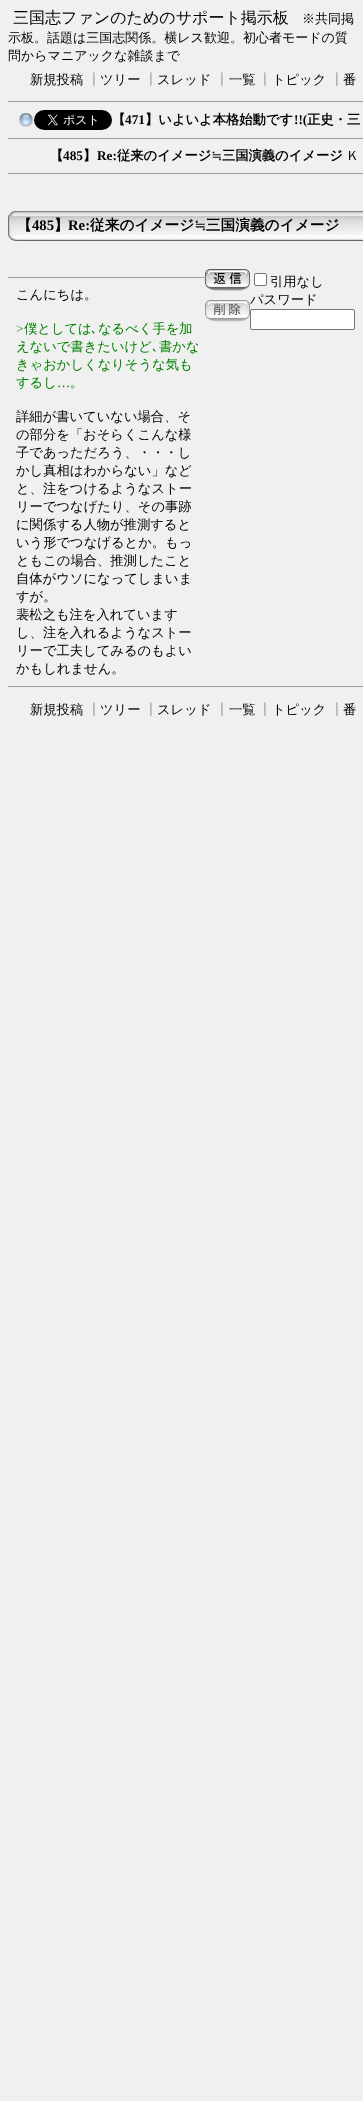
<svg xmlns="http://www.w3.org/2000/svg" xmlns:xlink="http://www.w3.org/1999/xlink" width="363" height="2101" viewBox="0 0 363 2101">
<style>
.cls-1{font:500 16px WenQuanYi Zen Hei;fill:#000000}
.cls-2{font:500 13px WenQuanYi Zen Hei;fill:#000000}
.cls-3{font:500 13.3px WenQuanYi Zen Hei;fill:#000000}
.cls-4{font:500 13.3px WenQuanYi Zen Hei;fill:#999999}
.cls-5{font:bold 13.3px WenQuanYi Zen Hei;fill:#000000}
.cls-6{font:bold 13.3px Liberation Serif;fill:#000000}
.cls-7{font:bold 14.7px WenQuanYi Zen Hei;fill:#000000}
.cls-8{font:bold 14.7px Liberation Serif;fill:#000000}
.cls-9{font:13.3px Liberation Serif;fill:#008000}
.cls-10{font:500 13.3px WenQuanYi Zen Hei;fill:#008000}
.cls-11{font:13.3px IPAPGothic;fill:#008000}
</style>
<rect width="100%" height="100%" fill="#f0f0f0"/>
<rect fill="#9f9f9f" x="8" y="101" width="355" height="1"/>
<image xlink:href="image0.png" x="18" y="112" width="16" height="15"/>
<image xlink:href="image1.png" x="34" y="110" width="78" height="20"/>
<rect fill="#9f9f9f" x="8" y="138" width="355" height="1"/>
<rect fill="#9f9f9f" x="8" y="173" width="355" height="1"/>
<image xlink:href="image2.png" x="8" y="211" width="9" height="30"/>
<image xlink:href="image3.png" x="17" y="211" width="346" height="30"/>
<image xlink:href="image4.png" x="205" y="269" width="45" height="22"/>
<rect fill="#9f9f9f" x="8" y="277" width="199" height="1"/>
<rect fill="#eeeeee" x="206" y="277" width="1" height="1"/>
<rect fill="#ffffff" stroke="#767676" x="254.5" y="273.5" width="12" height="12" rx="1.5"/>
<image xlink:href="image5.png" x="205" y="300" width="45" height="22"/>
<rect fill="#ffffff" stroke="#767676" x="250.5" y="309.5" width="104" height="20" rx="1.5"/>
<rect fill="#9f9f9f" x="8" y="686" width="355" height="1"/>
<text class="cls-1" x="13" y="23">三国志ファンのためのサポート掲示板</text>
<text class="cls-2" x="302" y="23">※共同掲</text>
<text class="cls-2"><tspan x="8" y="42">示板。話題は三国志関係。横レス歓迎。初心者モードの質</tspan><tspan x="8" y="60">問からマニアックな雑談まで</tspan></text>
<text class="cls-3" x="30" y="84">新規投稿</text>
<text class="cls-4" x="87" y="84">┃</text>
<text class="cls-3" x="100" y="84">ツリー</text>
<text class="cls-4" x="144" y="84">┃</text>
<text class="cls-3" x="157" y="84">スレッド</text>
<text class="cls-4" x="215" y="84">┃</text>
<text class="cls-3" x="229" y="84">一覧</text>
<text class="cls-4" x="258" y="84">┃</text>
<text class="cls-3" x="272" y="84">トピック</text>
<text class="cls-4" x="330" y="84">┃</text>
<text class="cls-3" x="343" y="84">番</text>
<text class="cls-5" x="112" y="124">【</text>
<text class="cls-6" x="125" y="124">471</text>
<text class="cls-5" x="145" y="124">】いよいよ本格始動です</text>
<text class="cls-6" x="294" y="124">!!(</text>
<text class="cls-5" x="307" y="124">正史・三</text>
<text class="cls-5" x="50" y="160">【</text>
<text class="cls-6" x="63" y="160">485</text>
<text class="cls-5" x="83" y="160">】</text>
<text class="cls-6" x="97" y="160">Re:</text>
<text class="cls-5" x="117" y="160">従来のイメージ≒三国演義のイメージ</text>
<text class="cls-3" x="346" y="160">Ｋ</text>
<text class="cls-7" x="17" y="230">【</text>
<text class="cls-8" x="32" y="230">485</text>
<text class="cls-7" x="54" y="230">】</text>
<text class="cls-8" x="68" y="230">Re:</text>
<text class="cls-7" x="90" y="230">従来のイメージ≒三国演義のイメージ</text>
<text class="cls-3" x="16" y="299">こんにちは。</text>
<text class="cls-9" x="16" y="333">&gt;</text>
<text class="cls-10" x="24" y="333">僕としては</text>
<text class="cls-11" x="91" y="333">､</text>
<text class="cls-10" x="98" y="333">なるべく手を加</text>
<text class="cls-10" x="16" y="351">えないで書きたいけど</text>
<text class="cls-11" x="152" y="351">､</text>
<text class="cls-10" x="159" y="351">書かな</text>
<text class="cls-10"><tspan x="16" y="369">きゃおかしくなりそうな気も</tspan><tspan x="16" y="387">するし</tspan></text>
<text class="cls-9" x="57" y="387">…</text>
<text class="cls-10" x="70" y="387">。</text>
<text class="cls-3"><tspan x="16" y="421">詳細が書いていない場合、そ</tspan><tspan x="16" y="439">の部分を「おそらくこんな様</tspan><tspan x="16" y="457">子であっただろう、・・・し</tspan><tspan x="16" y="475">かし真相はわからない」など</tspan><tspan x="16" y="493">と、注をつけるようなストー</tspan><tspan x="16" y="511">リーでつなげたり、その事跡</tspan><tspan x="16" y="529">に関係する人物が推測すると</tspan><tspan x="16" y="547">いう形でつなげるとか。もっ</tspan><tspan x="16" y="565">ともこの場合、推測したこと</tspan><tspan x="16" y="583">自体がウソになってしまいま</tspan><tspan x="16" y="601">すが。</tspan><tspan x="16" y="619">裴松之も注を入れています</tspan><tspan x="16" y="637">し、注を入れるようなストー</tspan><tspan x="16" y="655">リーで工夫してみるのもよい</tspan><tspan x="16" y="673">かもしれません。</tspan></text>
<text class="cls-3" x="270" y="286">引用なし</text>
<text class="cls-3" x="250" y="304">パスワード</text>
<text class="cls-3" x="30" y="714">新規投稿</text>
<text class="cls-4" x="87" y="714">┃</text>
<text class="cls-3" x="100" y="714">ツリー</text>
<text class="cls-4" x="144" y="714">┃</text>
<text class="cls-3" x="157" y="714">スレッド</text>
<text class="cls-4" x="215" y="714">┃</text>
<text class="cls-3" x="229" y="714">一覧</text>
<text class="cls-4" x="258" y="714">┃</text>
<text class="cls-3" x="272" y="714">トピック</text>
<text class="cls-4" x="330" y="714">┃</text>
<text class="cls-3" x="343" y="714">番</text>
</svg>
